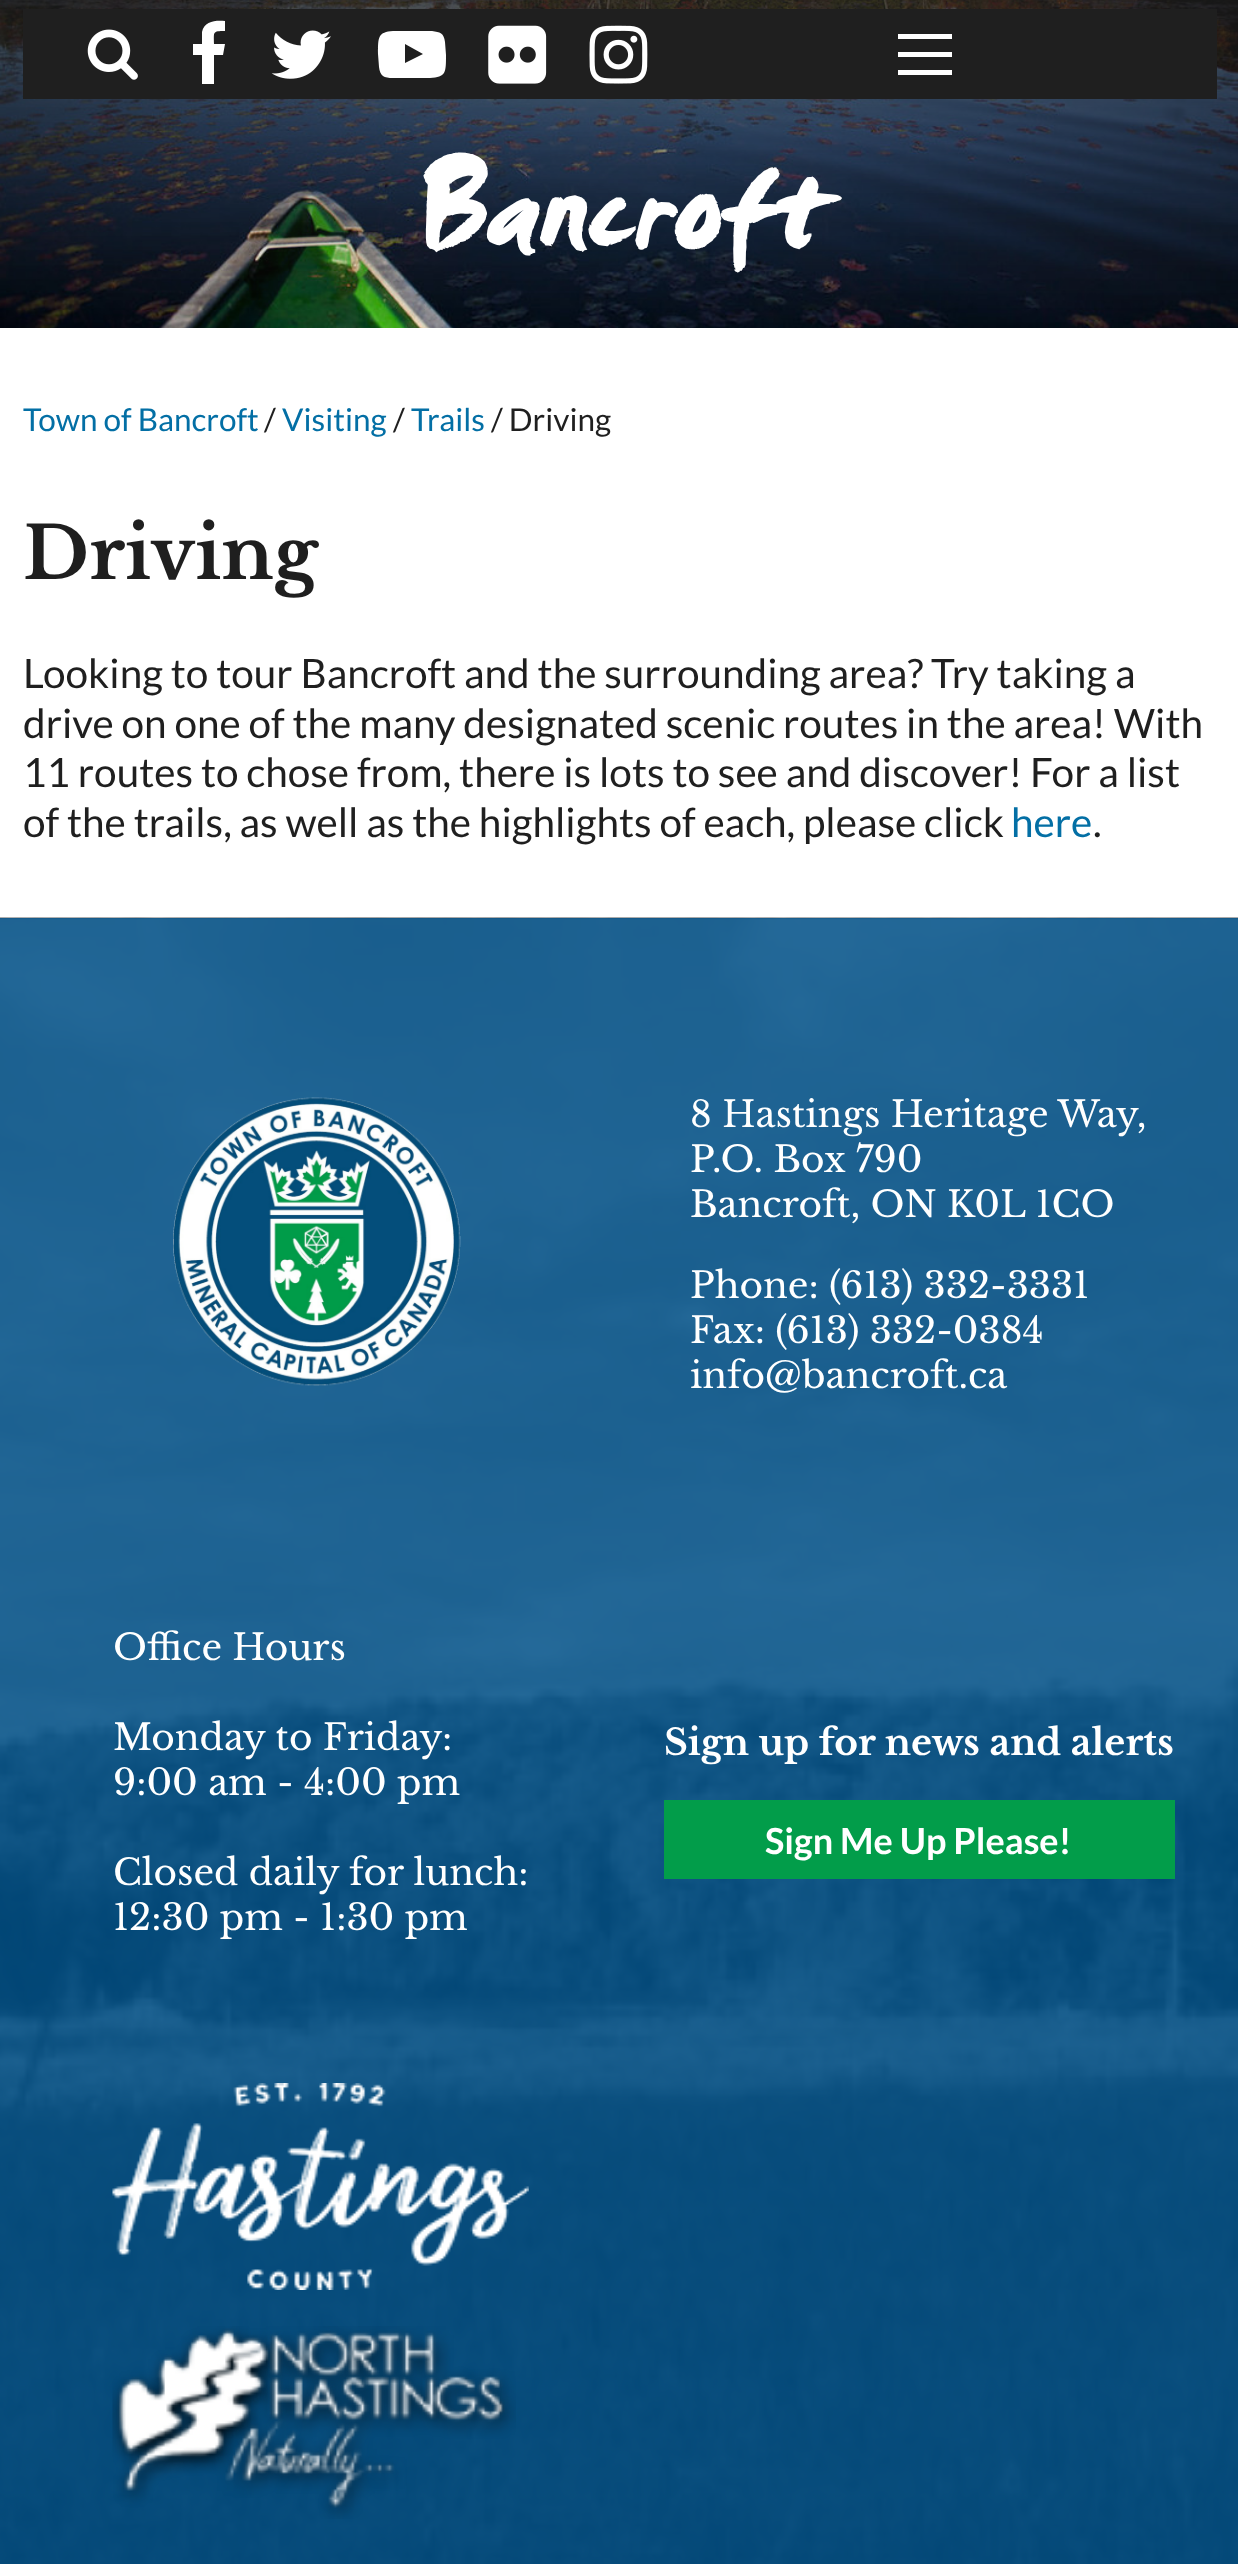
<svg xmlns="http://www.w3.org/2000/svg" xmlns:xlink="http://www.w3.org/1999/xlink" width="1238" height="2564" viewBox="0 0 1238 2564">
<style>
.cls-1{font:bold 124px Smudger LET;fill:#ffffff}
.cls-2{font:31.5px Lato;fill:#036fa5}
.cls-3{font:31.5px Lato;fill:#1f1f1f}
.cls-4{font:bold 72px Libre Baskerville;fill:#1f1f1f}
.cls-5{font:40.5px Lato;fill:#1f1f1f}
.cls-6{font:40.5px Lato;fill:#036fa5}
.cls-7{font:36px Libre Baskerville;fill:#ffffff}
.cls-8{font:bold 36px Libre Baskerville;fill:#ffffff}
.cls-9{font:bold 36px Lato;fill:#ffffff}
</style>
<rect width="100%" height="100%" fill="#ffffff"/>
<image xlink:href="image0.png" x="0" y="0" width="1238" height="328"/>
<rect fill="#1f1f1f" x="23" y="9" width="1194" height="90"/>
<image xlink:href="image1.png" x="87" y="29" width="51" height="51"/>
<path fill="#ffffff" d="M225 21V31C212 31 214 32 214 44H225L223 55H214V84H202V55H193V44H202V32C204 21 216 20 225 21Z"/>
<image xlink:href="image2.png" x="271" y="30" width="60" height="49"/>
<path fill="#ffffff" d="M405 63L423 54L405 44ZM412 31H432C440 32 444 33 445 42L446 55C446 73 446 77 430 78H412H393C384 78 380 76 379 67L378 54C378 37 378 32 393 31Z"/>
<image xlink:href="image3.png" x="488" y="25" width="59" height="59"/>
<image xlink:href="image4.png" x="589" y="25" width="59" height="59"/>
<rect fill="#ffffff" x="898" y="52" width="54" height="5"/>
<rect fill="#ffffff" x="898" y="34" width="54" height="5"/>
<rect fill="#ffffff" x="898" y="70" width="54" height="5"/>
<image xlink:href="image5.png" x="0" y="917" width="1238" height="1647"/>
<image xlink:href="image6.png" x="173" y="1097" width="288" height="289"/>
<rect fill="#029d4a" x="664" y="1800" width="511" height="79"/>
<image xlink:href="image7.png" x="112" y="2083" width="417" height="207"/>
<image xlink:href="image8.png" x="112" y="2326" width="404" height="193"/>
<text class="cls-1" x="417" y="243">Bancroft</text>
<text class="cls-2" x="23" y="431">Town of Bancroft</text>
<text class="cls-3" x="264" y="431">/</text>
<text class="cls-2" x="282" y="431">Visiting</text>
<text class="cls-3" x="393" y="431">/</text>
<text class="cls-2" x="411" y="431">Trails</text>
<text class="cls-3" x="491" y="431">/ Driving</text>
<text class="cls-4" x="23" y="579">Driving</text>
<text class="cls-5"><tspan x="23" y="688">Looking to tour Bancroft and the surrounding area? Try taking a</tspan><tspan x="23" y="738">drive on one of the many designated scenic routes in the area! With</tspan><tspan x="23" y="787">11 routes to chose from, there is lots to see and discover! For a list</tspan><tspan x="23" y="837">of the trails, as well as the highlights of each, please click</tspan></text>
<text class="cls-6" x="1011" y="837">here</text>
<text class="cls-5" x="1093" y="837">.</text>
<text class="cls-7"><tspan x="690" y="1127">8 Hastings Heritage Way,</tspan><tspan x="690" y="1172">P.O. Box 790</tspan><tspan x="690" y="1217">Bancroft, ON K0L 1CO</tspan></text>
<text class="cls-7"><tspan x="690" y="1298">Phone: (613) 332-3331</tspan><tspan x="690" y="1343">Fax: (613) 332-0384</tspan><tspan x="690" y="1388">info@bancroft.ca</tspan></text>
<text class="cls-7" x="113" y="1660">Office Hours</text>
<text class="cls-7"><tspan x="113" y="1750">Monday to Friday:</tspan><tspan x="113" y="1795">9:00 am - 4:00 pm</tspan></text>
<text class="cls-7"><tspan x="113" y="1885">Closed daily for lunch:</tspan><tspan x="113" y="1930">12:30 pm - 1:30 pm</tspan></text>
<text class="cls-8" x="664" y="1755">Sign up for news and alerts</text>
<text class="cls-9" x="765" y="1854">Sign Me Up Please!</text>
</svg>
